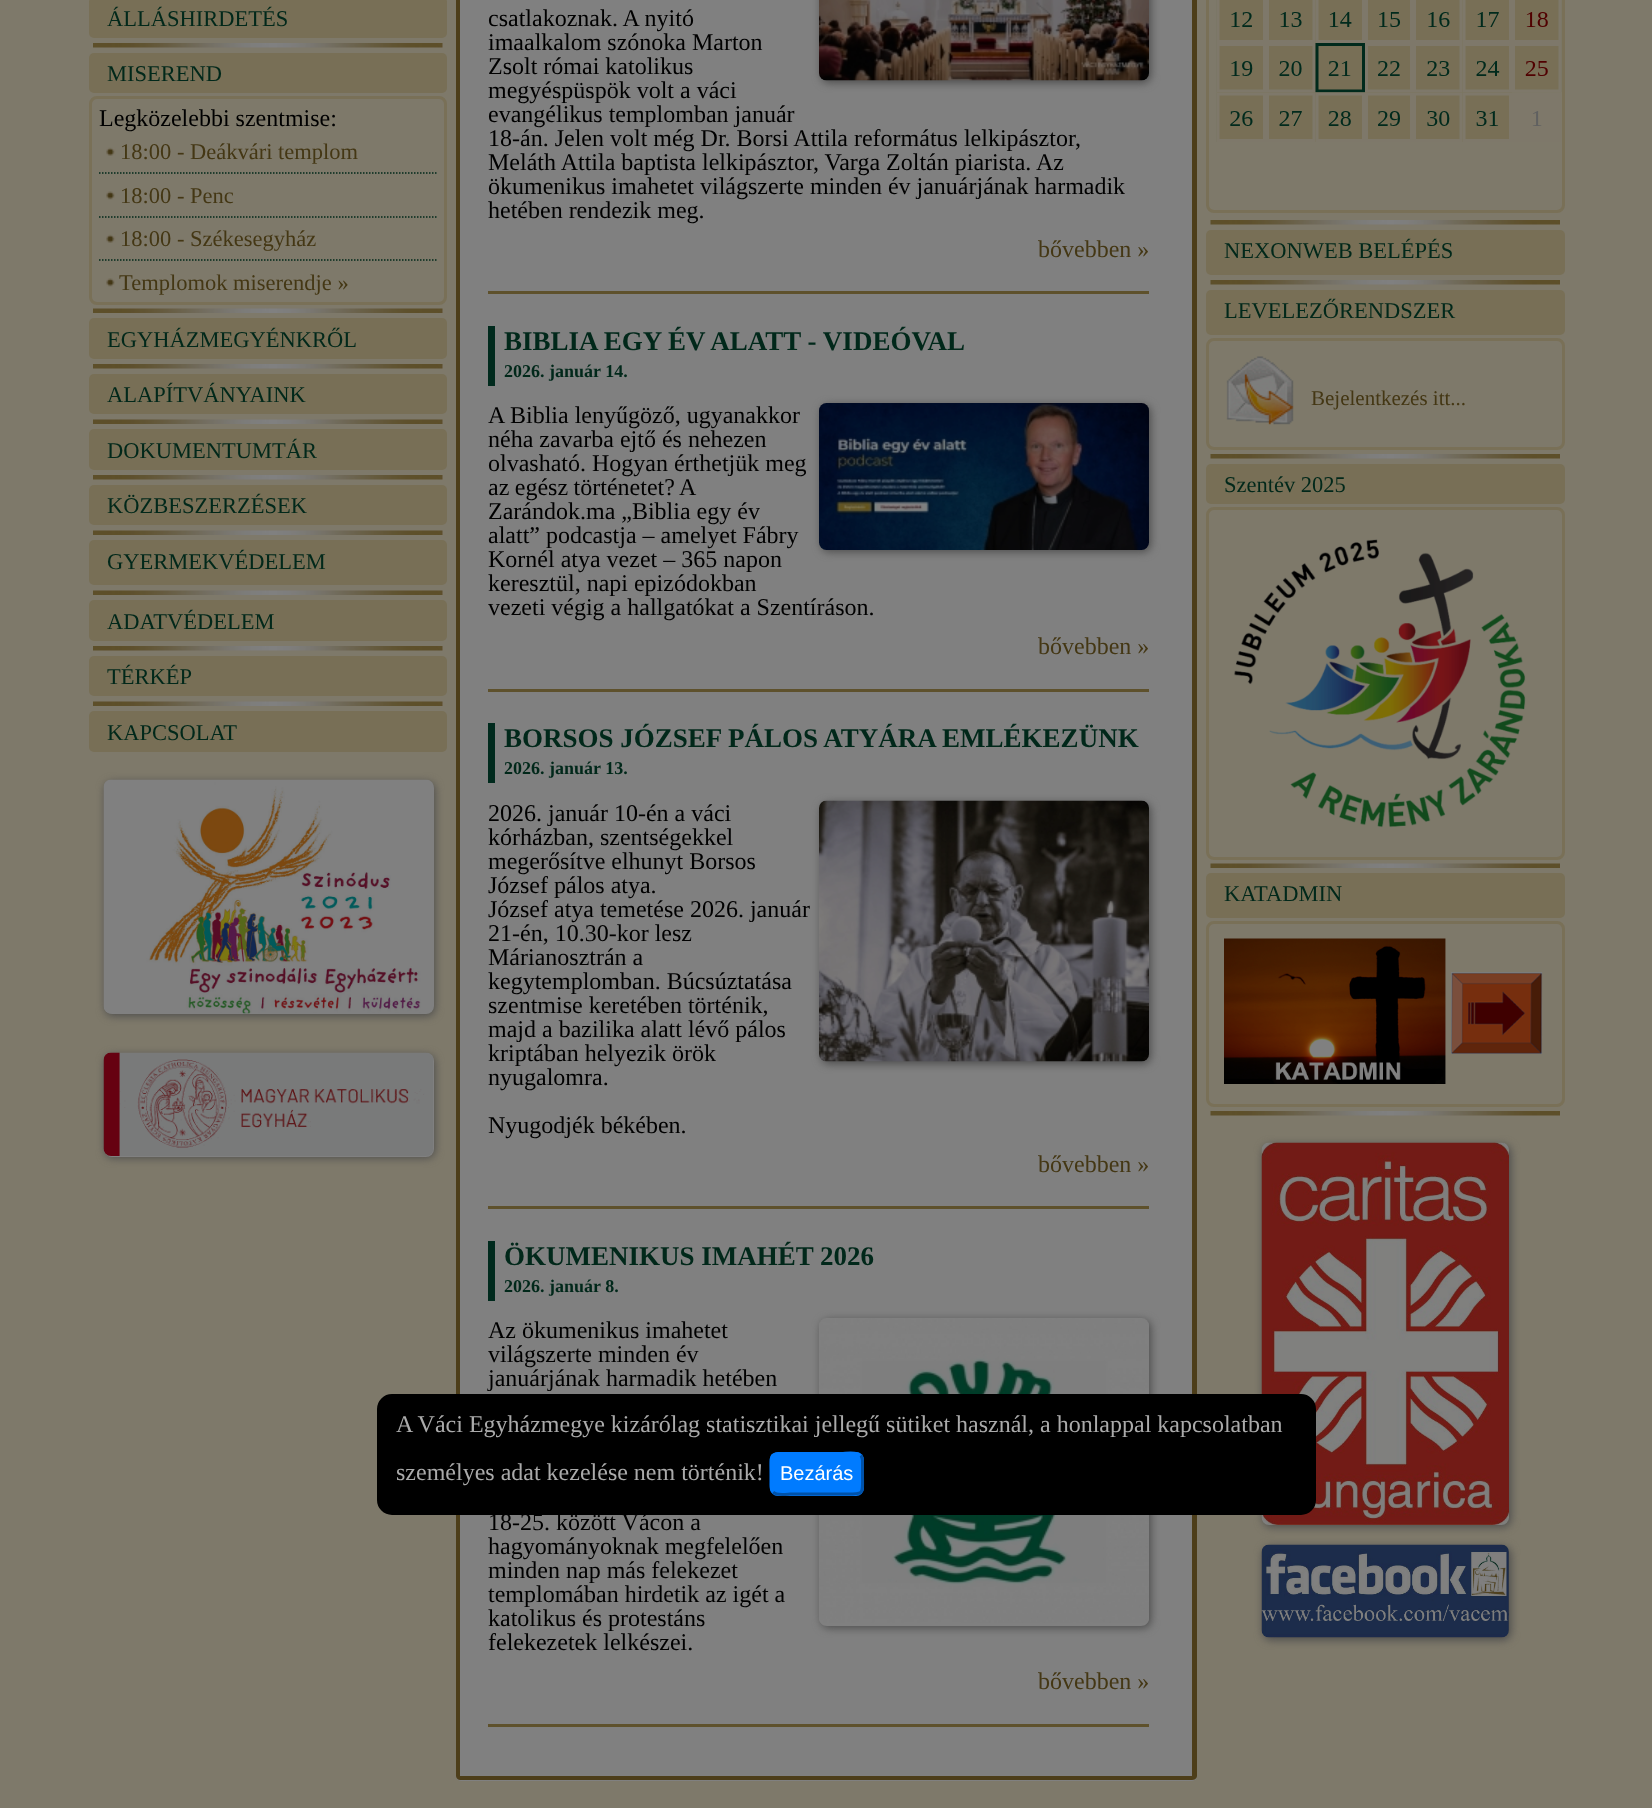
<svg xmlns="http://www.w3.org/2000/svg" xmlns:xlink="http://www.w3.org/1999/xlink" width="1652" height="1808" viewBox="0 0 1652 1808">
<style>
.cls-1{font:22.5px Liberation Serif;fill:#01281a}
.cls-2{font:24px Liberation Serif;fill:#000000}
.cls-3{font:22.5px Liberation Serif;fill:#443714}
.cls-4{font:24px Liberation Serif;fill:#443714}
.cls-5{font:bold 27px Liberation Serif;fill:#01281a}
.cls-6{font:bold 18px Liberation Serif;fill:#01281a}
.cls-7{font:21px Liberation Serif;fill:#443714}
.cls-8{font:24px Liberation Serif;fill:#aaaaaa}
.cls-9{font:20px Liberation Sans;fill:#ffffff}
</style>
<defs>
<clipPath id="clip1"><path d="M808 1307H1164V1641H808ZM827 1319H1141C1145.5 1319 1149 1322.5 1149 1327V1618C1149 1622.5 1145.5 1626 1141 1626H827C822.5 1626 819 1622.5 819 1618V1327C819 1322.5 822.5 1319 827 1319Z" clip-rule="evenodd"/></clipPath>
</defs>
<rect width="100%" height="100%" fill="#7e796a"/>
<rect fill="#786f56" x="89" y="-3" width="358" height="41" rx="5"/>
<image xlink:href="image0.png" x="93" y="43" width="350" height="5"/>
<rect fill="#786f56" x="89" y="53" width="358" height="40" rx="5"/>
<rect fill="none" stroke="#797057" stroke-width="3" x="90.5" y="97.5" width="355" height="206" rx="6.5"/>
<path fill="none" stroke="#01281a" stroke-width="1.5" stroke-dasharray="1.5 1.5" d="M99 173H436.5"/>
<image xlink:href="image1.png" x="106" y="147" width="10" height="9"/>
<path fill="none" stroke="#01281a" stroke-width="1.5" stroke-dasharray="1.5 1.5" d="M99 217H436.5"/>
<image xlink:href="image2.png" x="106" y="191" width="9" height="9"/>
<path fill="none" stroke="#01281a" stroke-width="1.5" stroke-dasharray="1.5 1.5" d="M99 260H436.5"/>
<image xlink:href="image1.png" x="106" y="234" width="10" height="9"/>
<image xlink:href="image2.png" x="106" y="278" width="9" height="9"/>
<image xlink:href="image3.png" x="93" y="308" width="350" height="5"/>
<rect fill="#786f56" x="89" y="318" width="358" height="41" rx="5"/>
<image xlink:href="image0.png" x="93" y="364" width="350" height="5"/>
<rect fill="#786f56" x="89" y="374" width="358" height="40" rx="5"/>
<image xlink:href="image3.png" x="93" y="419" width="350" height="5"/>
<rect fill="#786f56" x="89" y="429" width="358" height="41" rx="5"/>
<image xlink:href="image0.png" x="93" y="475" width="350" height="5"/>
<rect fill="#786f56" x="89" y="485" width="358" height="40" rx="5"/>
<image xlink:href="image3.png" x="93" y="530" width="350" height="5"/>
<rect fill="#786f56" x="89" y="540" width="358" height="45" rx="5"/>
<image xlink:href="image3.png" x="93" y="590" width="350" height="5"/>
<rect fill="#786f56" x="89" y="600" width="358" height="41" rx="5"/>
<image xlink:href="image0.png" x="93" y="646" width="350" height="5"/>
<rect fill="#786f56" x="89" y="656" width="358" height="40" rx="5"/>
<image xlink:href="image3.png" x="93" y="701" width="350" height="5"/>
<rect fill="#786f56" x="89" y="711" width="358" height="41" rx="5"/>
<rect fill="#4d4d4d" filter="blur(4px)" x="105" y="782" width="330" height="234" rx="8"/>
<rect fill="#808080" x="104" y="780" width="330" height="234" rx="8"/>
<image xlink:href="image4.png" x="103" y="779" width="330" height="235"/>
<rect fill="#4d4d4d" filter="blur(4px)" x="105" y="1055" width="330" height="103" rx="8"/>
<rect fill="#808080" x="104" y="1053" width="330" height="104" rx="8"/>
<image xlink:href="image5.png" x="103" y="1052" width="330" height="104"/>
<rect fill="#808080" x="456" y="-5" width="741" height="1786" rx="5"/>
<path fill="#4d3e1a" fill-rule="evenodd" d="M460-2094H1192C1195-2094 1197-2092 1197-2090V1776C1197 1778 1195 1780 1192 1780H460C458 1780 456 1778 456 1776V-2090C456-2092 458-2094 460-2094ZM460-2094H1192V1776H460Z"/>
<rect fill="#5e512c" x="488" y="291" width="661" height="3"/>
<rect fill="#4d4d4d" filter="blur(4px)" x="821" y="-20" width="330" height="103" rx="8"/>
<image xlink:href="image6.png" x="819" y="0" width="330" height="81"/>
<rect fill="#5e512c" x="488" y="689" width="661" height="3"/>
<rect fill="#002a1d" x="488" y="326" width="7" height="60"/>
<rect fill="#4d4d4d" filter="blur(4px)" x="821" y="405" width="330" height="147" rx="8"/>
<image xlink:href="image7.png" x="819" y="403" width="330" height="147"/>
<rect fill="#5e512c" x="488" y="1206" width="661" height="3"/>
<rect fill="#002a1d" x="488" y="723" width="7" height="60"/>
<rect fill="#4d4d4d" filter="blur(4px)" x="821" y="803" width="330" height="261" rx="8"/>
<image xlink:href="image8.png" x="819" y="800" width="330" height="262"/>
<rect fill="#5e512c" x="488" y="1724" width="661" height="3"/>
<rect fill="#002a1d" x="488" y="1241" width="7" height="60"/>
<g clip-path="url(#clip1)">
<rect fill="#4d4d4d" filter="blur(4px)" x="821" y="1320" width="330" height="308" rx="8"/>
</g>
<image xlink:href="image9.png" x="819" y="1318" width="330" height="305"/>
<rect fill="none" stroke="#797057" stroke-width="3" x="1207.5" y="-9.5" width="356" height="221" rx="6.5"/>
<image xlink:href="image10.png" x="1216" y="0" width="346" height="142"/>
<image xlink:href="image11.png" x="1210" y="220" width="350" height="5"/>
<rect fill="#786f56" x="1206" y="230" width="359" height="45" rx="5"/>
<image xlink:href="image11.png" x="1210" y="280" width="350" height="5"/>
<rect fill="#786f56" x="1206" y="290" width="359" height="45" rx="5"/>
<rect fill="none" stroke="#797057" stroke-width="3" x="1207.5" y="339.5" width="356" height="109" rx="6.5"/>
<image xlink:href="image12.png" x="1226" y="356" width="68" height="69"/>
<image xlink:href="image11.png" x="1210" y="454" width="350" height="5"/>
<rect fill="#786f56" x="1206" y="464" width="359" height="40" rx="5"/>
<rect fill="none" stroke="#797057" stroke-width="3" x="1207.5" y="508.5" width="356" height="350" rx="6.5"/>
<image xlink:href="image13.png" x="1234" y="539" width="292" height="289"/>
<image xlink:href="image14.png" x="1210" y="863" width="350" height="5"/>
<rect fill="#786f56" x="1206" y="873" width="359" height="45" rx="5"/>
<rect fill="none" stroke="#797057" stroke-width="3" x="1207.5" y="922.5" width="356" height="183" rx="6.5"/>
<image xlink:href="image15.png" x="1224" y="938" width="319" height="146"/>
<image xlink:href="image11.png" x="1210" y="1111" width="350" height="5"/>
<rect fill="#4d4d4d" filter="blur(4px)" x="1263" y="1145" width="248" height="382" rx="8"/>
<image xlink:href="image16.png" x="1261" y="1142" width="248" height="383"/>
<rect fill="#4d4d4d" filter="blur(4px)" x="1263" y="1547" width="248" height="93" rx="8"/>
<image xlink:href="image17.png" x="1261" y="1544" width="248" height="94"/>
<rect fill="#000000" stroke="#000000" stroke-width="2" x="378" y="1395" width="937" height="119" rx="14"/>
<rect fill="#007bff" x="770" y="1452" width="94" height="44" rx="8"/>
<path fill="none" stroke="#0052aa" stroke-width="3" d="M860.5 1455.5C863 1457.5 862.5 1461 862.5 1464V1474C862.5 1495.5 865 1494 843 1494H790C788 1494 776.5 1496 773 1492"/>
<path fill="none" stroke="#007bff" stroke-width="3" d="M773 1492C770.5 1490 771 1486.5 771 1483V1474C771 1452 768.5 1453.5 790 1453.5H843C845.5 1453.5 857 1451.5 860.5 1455.5"/>
<text class="cls-1" x="107" y="26">ÁLLÁSHIRDETÉS</text>
<text class="cls-1" x="107" y="81">MISEREND</text>
<text class="cls-2" x="99" y="126">Legközelebbi szentmise:</text>
<text class="cls-3"><tspan x="120" y="159">18:00 - Deákvári templom</tspan><tspan x="120" y="203">18:00 - Penc</tspan><tspan x="120" y="246">18:00 - Székesegyház</tspan></text>
<text class="cls-3" x="119" y="290">Templomok miserendje »</text>
<text class="cls-1" x="107" y="347">EGYHÁZMEGYÉNKRŐL</text>
<text class="cls-1" x="107" y="402">ALAPÍTVÁNYAINK</text>
<text class="cls-1" x="107" y="458">DOKUMENTUMTÁR</text>
<text class="cls-1" x="107" y="513">KÖZBESZERZÉSEK</text>
<text class="cls-1" x="107" y="569">GYERMEKVÉDELEM</text>
<text class="cls-1" x="107" y="629">ADATVÉDELEM</text>
<text class="cls-1" x="107" y="684">TÉRKÉP</text>
<text class="cls-1" x="107" y="740">KAPCSOLAT</text>
<text class="cls-2"><tspan x="488" y="26">csatlakoznak. A nyitó</tspan><tspan x="488" y="50">imaalkalom szónoka Marton</tspan><tspan x="488" y="74">Zsolt római katolikus</tspan><tspan x="488" y="98">megyéspüspök volt a váci</tspan><tspan x="488" y="122">evangélikus templomban január</tspan><tspan x="488" y="146">18-án. Jelen volt még Dr. Borsi Attila református lelkipásztor,</tspan><tspan x="488" y="170">Meláth Attila baptista lelkipásztor, Varga Zoltán piarista. Az</tspan><tspan x="488" y="194">ökumenikus imahetet világszerte minden év januárjának harmadik</tspan><tspan x="488" y="218">hetében rendezik meg.</tspan></text>
<text class="cls-4" x="1038" y="257">bővebben »</text>
<text class="cls-5" x="504" y="350">BIBLIA EGY ÉV ALATT - VIDEÓVAL</text>
<text class="cls-6" x="504" y="377">2026. január 14.</text>
<text class="cls-2"><tspan x="488" y="423">A Biblia lenyűgöző, ugyanakkor</tspan><tspan x="488" y="447">néha zavarba ejtő és nehezen</tspan><tspan x="488" y="471">olvasható. Hogyan érthetjük meg</tspan><tspan x="488" y="495" word-spacing="-0.5">az egész történetet? A</tspan><tspan x="488" y="519">Zarándok.ma „Biblia egy év</tspan><tspan x="488" y="543">alatt” podcastja – amelyet Fábry</tspan><tspan x="488" y="567">Kornél atya vezet – 365 napon</tspan><tspan x="488" y="591">keresztül, napi epizódokban</tspan><tspan x="488" y="615">vezeti végig a hallgatókat a Szentíráson.</tspan></text>
<text class="cls-4" x="1038" y="654">bővebben »</text>
<text class="cls-5" x="504" y="747">BORSOS JÓZSEF PÁLOS ATYÁRA EMLÉKEZÜNK</text>
<text class="cls-6" x="504" y="774">2026. január 13.</text>
<text class="cls-2"><tspan x="488" y="821">2026. január 10-én a váci</tspan><tspan x="488" y="845">kórházban, szentségekkel</tspan><tspan x="488" y="869">megerősítve elhunyt Borsos</tspan><tspan x="488" y="893">József pálos atya.</tspan><tspan x="488" y="917">József atya temetése 2026. január</tspan><tspan x="488" y="941">21-én, 10.30-kor lesz</tspan><tspan x="488" y="965">Márianosztrán a</tspan><tspan x="488" y="989">kegytemplomban. Búcsúztatása</tspan><tspan x="488" y="1013">szentmise keretében történik,</tspan><tspan x="488" y="1037">majd a bazilika alatt lévő pálos</tspan><tspan x="488" y="1061">kriptában helyezik örök</tspan><tspan x="488" y="1085">nyugalomra.</tspan></text>
<text class="cls-2" x="488" y="1133">Nyugodjék békében.</text>
<text class="cls-4" x="1038" y="1172">bővebben »</text>
<text class="cls-5" x="504" y="1265">ÖKUMENIKUS IMAHÉT 2026</text>
<text class="cls-6" x="504" y="1292">2026. január 8.</text>
<text class="cls-2"><tspan x="488" y="1338">Az ökumenikus imahetet</tspan><tspan x="488" y="1362">világszerte minden év</tspan><tspan x="488" y="1386">januárjának harmadik hetében</tspan></text>
<text class="cls-2"><tspan x="488" y="1530">18-25. között Vácon a</tspan><tspan x="488" y="1554">hagyományoknak megfelelően</tspan><tspan x="488" y="1578">minden nap más felekezet</tspan><tspan x="488" y="1602">templomában hirdetik az igét a</tspan><tspan x="488" y="1626">katolikus és protestáns</tspan><tspan x="488" y="1650">felekezetek lelkészei.</tspan></text>
<text class="cls-4" x="1038" y="1689">bővebben »</text>
<text class="cls-1" x="1224" y="258">NEXONWEB BELÉPÉS</text>
<text class="cls-1" x="1224" y="318">LEVELEZŐRENDSZER</text>
<text class="cls-7" x="1311" y="405">Bejelentkezés itt...</text>
<text class="cls-1" x="1224" y="492">Szentév 2025</text>
<text class="cls-1" x="1224" y="901">KATADMIN</text>
<text class="cls-8" x="396" y="1432">A Váci Egyházmegye kizárólag statisztikai jellegű sütiket használ, a honlappal kapcsolatban</text>
<text class="cls-8" x="396" y="1480">személyes adat kezelése nem történik!</text>
<text class="cls-9" x="780" y="1480">Bezárás</text>
</svg>
